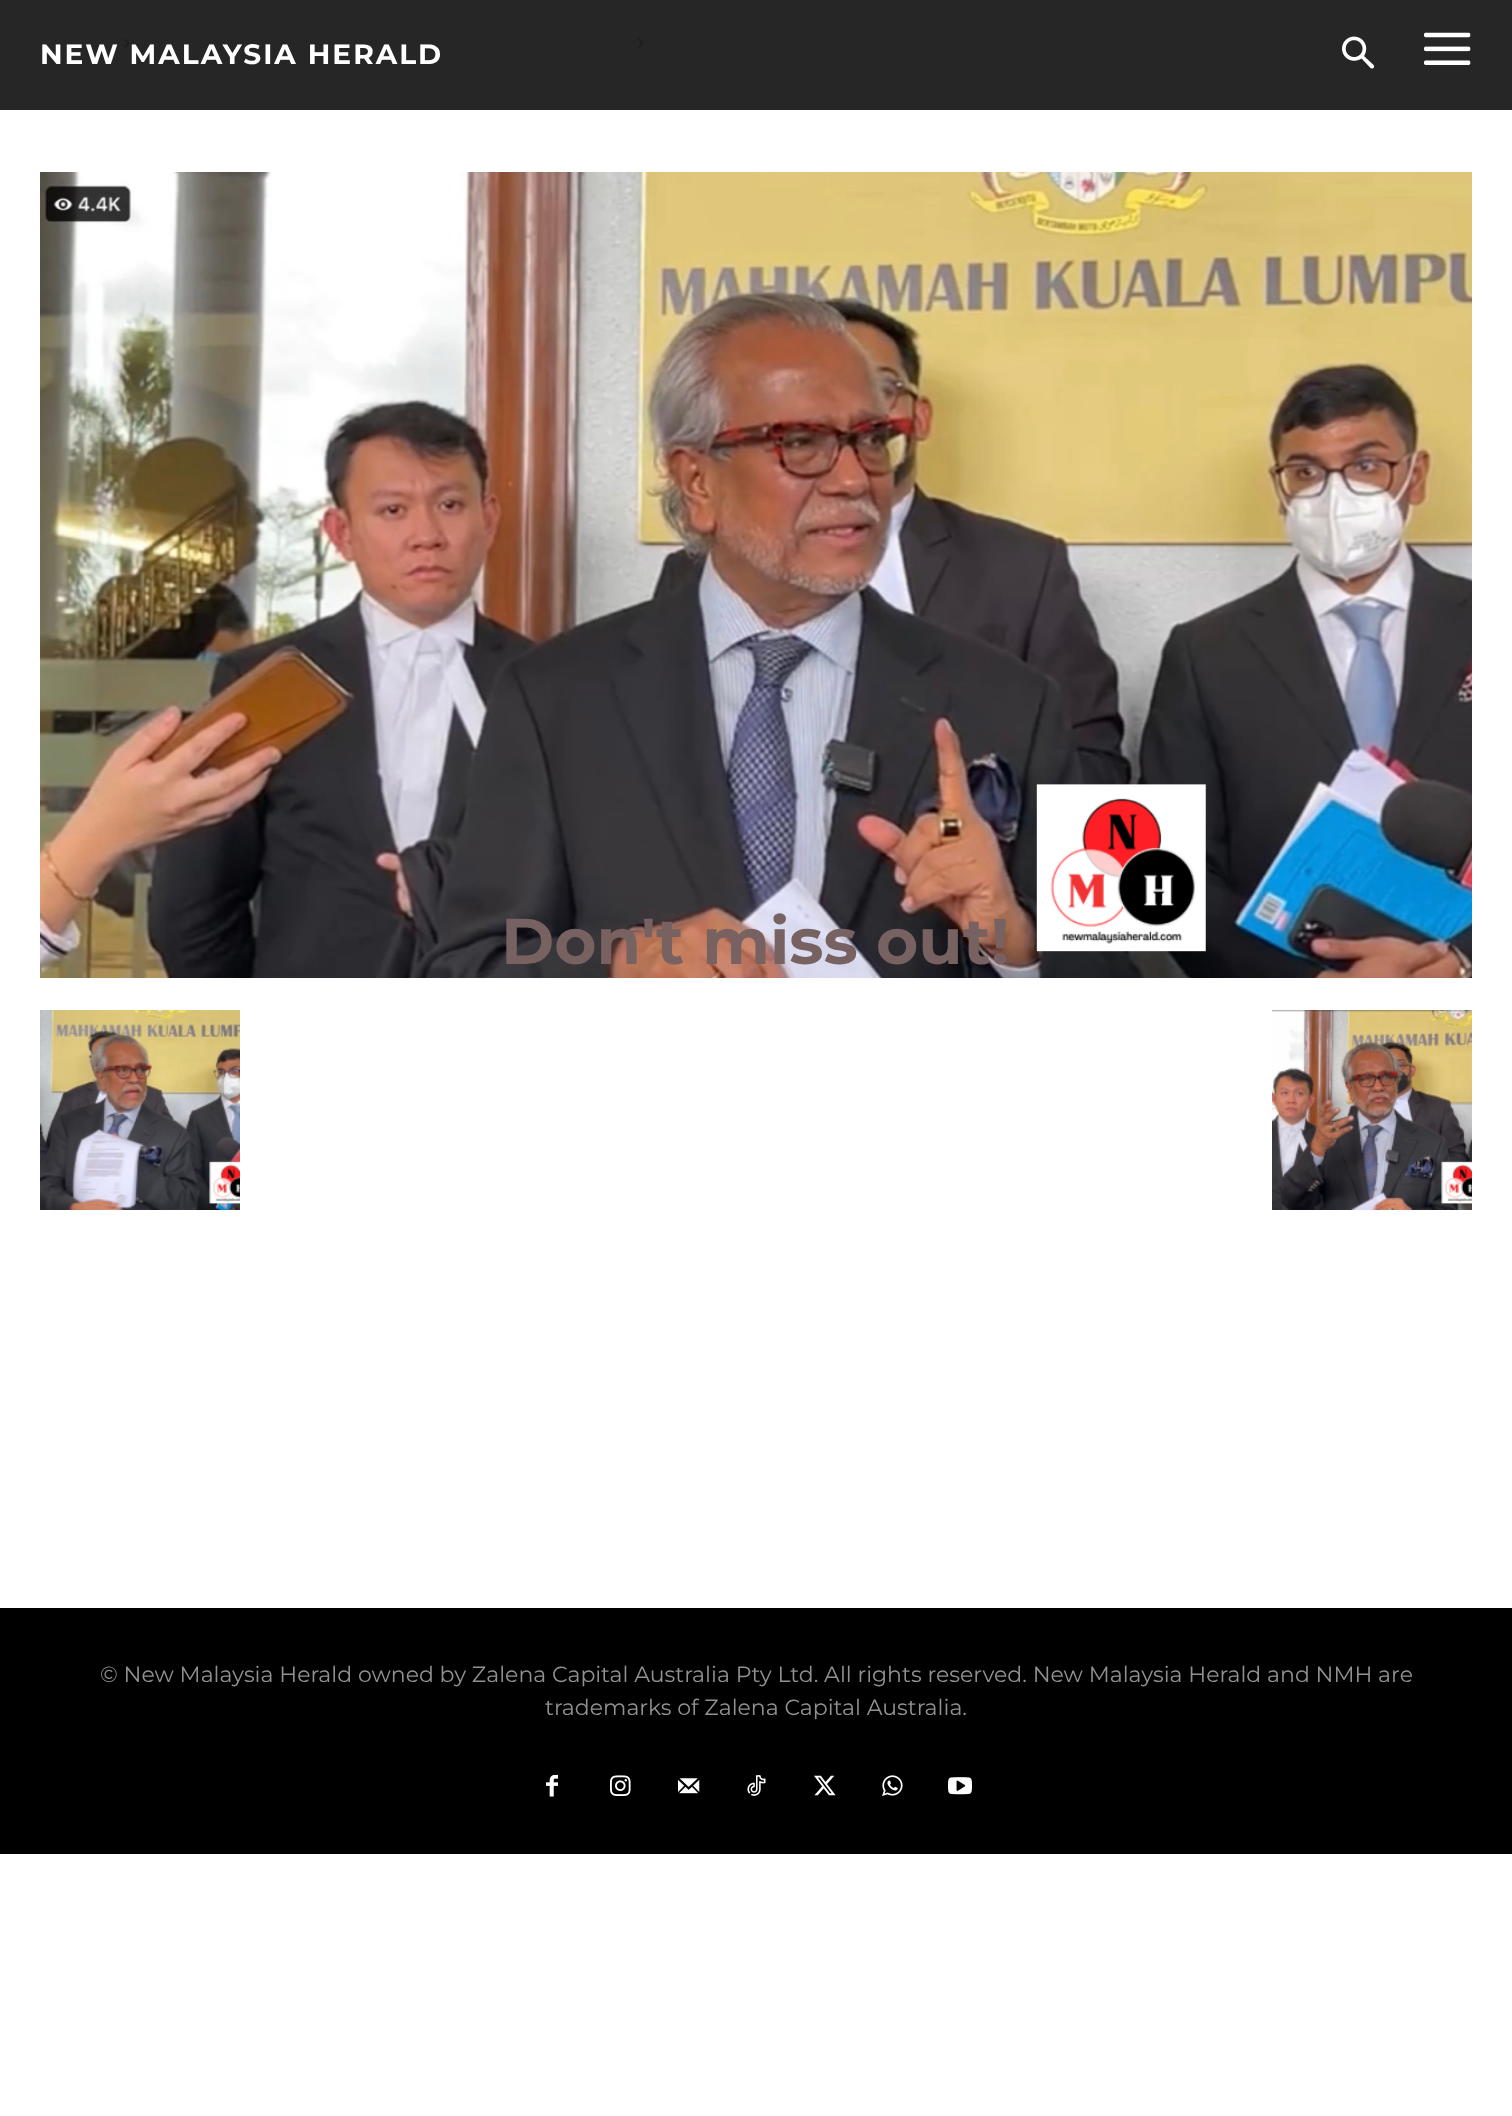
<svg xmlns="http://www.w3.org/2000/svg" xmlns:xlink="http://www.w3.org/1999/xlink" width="1512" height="2116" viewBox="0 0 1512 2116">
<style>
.cls-1{font:bold 28px Montserrat;letter-spacing:2px;fill:#ffffff}
.cls-2{font:22px Montserrat;fill:#919191}
.cls-3{font:bold 64.5px Montserrat;fill:#776261}
</style>
<rect width="100%" height="100%" fill="#ffffff"/>
<image xlink:href="image0.png" x="124" y="38" width="6" height="10"/>
<image xlink:href="image0.png" x="638" y="38" width="6" height="10"/>
<image xlink:href="image1.png" x="40" y="172" width="1432" height="806"/>
<image xlink:href="image2.png" x="40" y="1010" width="200" height="200"/>
<image xlink:href="image3.png" x="1272" y="1010" width="200" height="200"/>
<rect fill="#000000" fill-opacity="0.85" x="0" y="0" width="1512" height="110"/>
<image xlink:href="image4.png" x="1342" y="36" width="33" height="33"/>
<image xlink:href="image5.png" x="1424" y="32" width="47" height="33"/>
<rect fill="#000000" x="0" y="1608" width="1512" height="246"/>
<image xlink:href="image6.png" x="546" y="1774" width="12" height="23"/>
<image xlink:href="image7.png" x="610" y="1775" width="21" height="21"/>
<image xlink:href="image8.png" x="678" y="1778" width="22" height="16"/>
<image xlink:href="image9.png" x="747" y="1775" width="19" height="21"/>
<image xlink:href="image10.png" x="814" y="1775" width="22" height="21"/>
<image xlink:href="image11.png" x="882" y="1775" width="21" height="21"/>
<image xlink:href="image12.png" x="948" y="1777" width="24" height="18"/>
<text class="cls-1" x="40" y="64">NEW MALAYSIA HERALD</text>
<text class="cls-2" x="100" y="1682">© New Malaysia Herald owned by Zalena Capital Australia Pty Ltd. All rights reserved. New Malaysia Herald and NMH are</text>
<text class="cls-2" x="545" y="1715">trademarks of Zalena Capital Australia.</text>
<text class="cls-3" x="501" y="964">Don't miss out!</text>
</svg>
